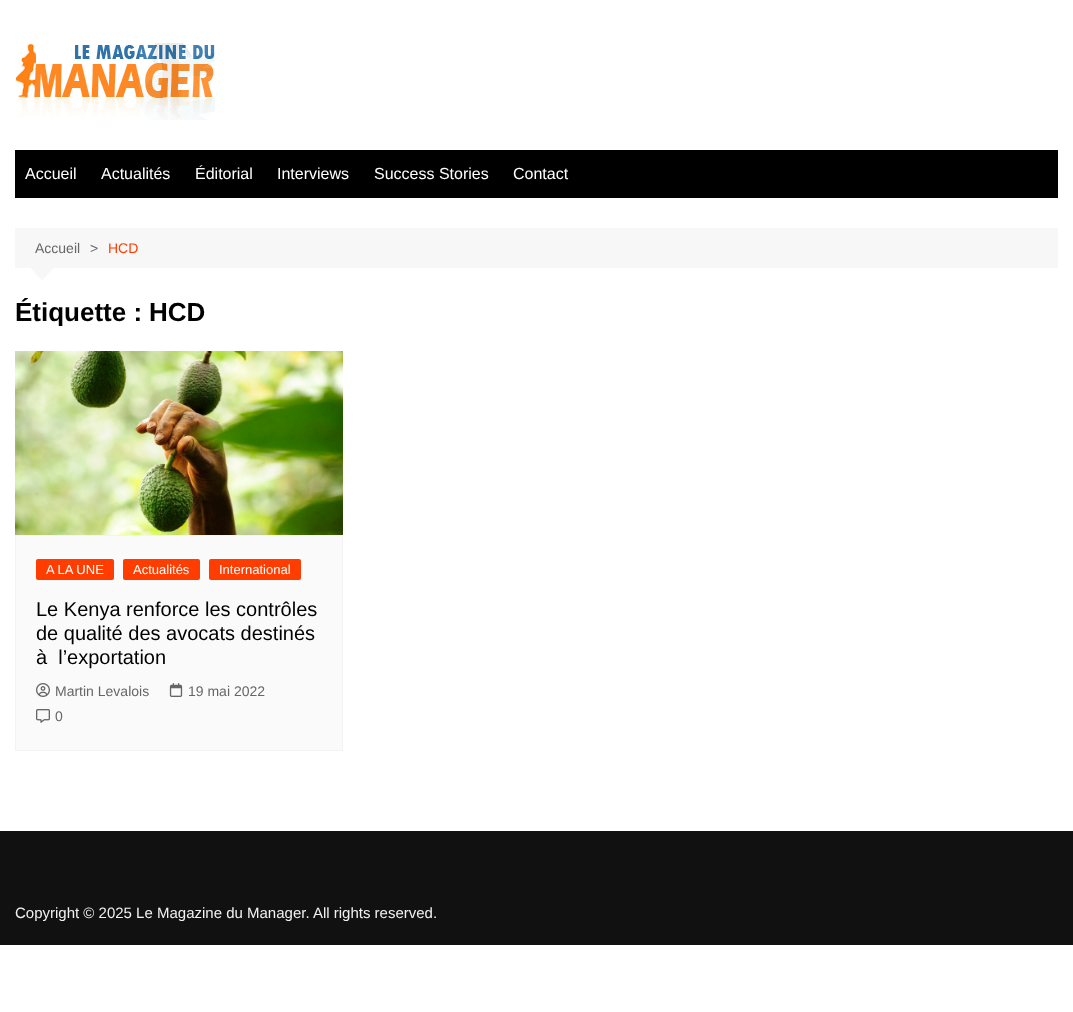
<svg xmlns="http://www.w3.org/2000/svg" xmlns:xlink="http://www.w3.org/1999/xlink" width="1073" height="1012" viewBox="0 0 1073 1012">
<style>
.cls-1{font:16px Liberation Sans;fill:#ffffff}
.cls-2{font:14px Liberation Sans;fill:#666666}
.cls-3{font:14px Liberation Sans;fill:#ff3d00}
.cls-4{font:bold 26px Liberation Sans;fill:#010101}
.cls-5{font:13px Liberation Sans;fill:#ffffff}
.cls-6{font:20px Liberation Sans;fill:#010101}
.cls-7{font:15px Liberation Sans;fill:#f1f1f1}
</style>
<defs>
<clipPath id="clip1"><rect x="15" y="298" width="1043" height="28"/></clipPath>
</defs>
<rect width="100%" height="100%" fill="#ffffff"/>
<image xlink:href="image0.png" x="16" y="43" width="199" height="77"/>
<rect fill="#000000" x="15" y="150" width="1043" height="48"/>
<rect fill="#f7f7f7" x="15" y="228" width="1043" height="40"/>
<path fill="#f7f7f7" d="M30 267.5H54L42 280.5Z"/>
<image xlink:href="image1.png" x="15" y="351" width="328" height="184"/>
<rect fill="#fafafa" stroke="#f3f3f3" x="15.5" y="535.5" width="327" height="215"/>
<rect fill="#ff3d00" x="36" y="559" width="78" height="21" rx="2"/>
<rect fill="#ff3d00" x="123" y="559" width="77" height="21" rx="2"/>
<rect fill="#ff3d00" x="209" y="559" width="92" height="21" rx="2"/>
<image xlink:href="image2.png" x="36" y="683" width="14" height="14"/>
<image xlink:href="image3.png" x="169" y="683" width="14" height="14"/>
<image xlink:href="image4.png" x="36" y="709" width="14" height="14"/>
<rect fill="#111111" x="0" y="831" width="1073" height="114"/>
<text class="cls-1" x="25" y="179">Accueil</text>
<text class="cls-1" x="101" y="179">Actualités</text>
<text class="cls-1" x="195" y="179">Éditorial</text>
<text class="cls-1" x="277" y="179">Interviews</text>
<text class="cls-1" x="374" y="179">Success Stories</text>
<text class="cls-1" x="513" y="179">Contact</text>
<text class="cls-2" x="35" y="253">Accueil</text>
<text class="cls-2" x="90" y="253">&gt;</text>
<text class="cls-3" x="108" y="253">HCD</text>
<g clip-path="url(#clip1)">
<text class="cls-4" x="15" y="321">Étiquette :</text>
</g>
<text class="cls-4" x="149" y="321">HCD</text>
<text class="cls-5" x="46" y="574">A LA UNE</text>
<text class="cls-5" x="133" y="574">Actualités</text>
<text class="cls-5" x="219" y="574">International</text>
<text class="cls-6" xml:space="preserve"><tspan x="36" y="616">Le Kenya renforce les contrôles</tspan><tspan x="36" y="640">de qualité des avocats destinés</tspan><tspan x="36" y="664">à  l’exportation</tspan></text>
<text class="cls-2" x="55" y="696">Martin Levalois</text>
<text class="cls-2" x="188" y="696">19 mai 2022</text>
<text class="cls-2" x="55" y="721">0</text>
<text class="cls-7" x="15" y="918">Copyright © 2025 Le Magazine du Manager. All rights reserved.</text>
</svg>
